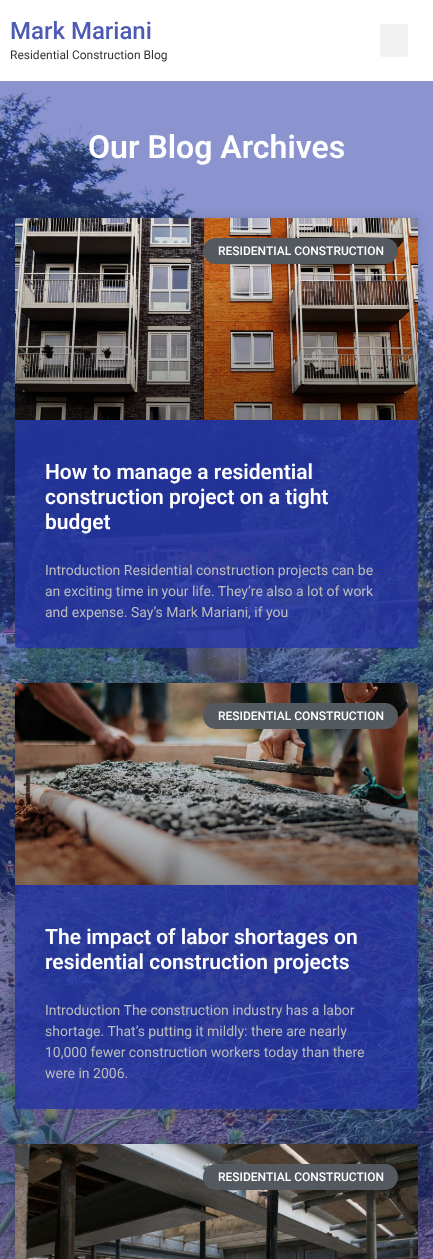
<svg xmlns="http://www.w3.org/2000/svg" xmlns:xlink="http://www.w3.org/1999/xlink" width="433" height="1259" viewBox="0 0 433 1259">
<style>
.cls-1{font:500 24px Roboto;fill:#4e5bb5}
.cls-2{font:12px Roboto;fill:#333333}
.cls-3{font:600 32px Roboto;fill:#ffffff}
.cls-4{font:500 12px Roboto;fill:#ffffff}
.cls-5{font:600 21px Roboto;fill:#ffffff}
.cls-6{font:14px Roboto;fill:#bcbcbc}
</style>
<defs>
<clipPath id="clip1"><path d="M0 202H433V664H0ZM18 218H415C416.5 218 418 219.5 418 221V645C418 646.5 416.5 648 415 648H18C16.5 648 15 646.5 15 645V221C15 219.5 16.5 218 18 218Z" clip-rule="evenodd"/></clipPath>
<linearGradient id="g1" gradientUnits="userSpaceOnUse" x1="217" y1="420" x2="217" y2="218"><stop offset="0" stop-color="#000000" stop-opacity="0.35"/><stop offset="0.75" stop-color="#000000" stop-opacity="0"/></linearGradient>
<clipPath id="clip2"><path d="M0 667H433V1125H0ZM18 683H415C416.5 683 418 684.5 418 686V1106C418 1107.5 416.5 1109 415 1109H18C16.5 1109 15 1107.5 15 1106V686C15 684.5 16.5 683 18 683Z" clip-rule="evenodd"/></clipPath>
<linearGradient id="g2" gradientUnits="userSpaceOnUse" x1="217" y1="885" x2="217" y2="683"><stop offset="0" stop-color="#000000" stop-opacity="0.35"/><stop offset="0.75" stop-color="#000000" stop-opacity="0"/></linearGradient>
<linearGradient id="g3" gradientUnits="userSpaceOnUse" x1="217" y1="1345" x2="217" y2="1144"><stop offset="0" stop-color="#000000" stop-opacity="0.35"/><stop offset="0.75" stop-color="#000000" stop-opacity="0"/></linearGradient>
</defs>
<rect width="100%" height="100%" fill="#ffffff"/>
<rect fill="#f2f2f2" x="380" y="24" width="28" height="33" rx="3"/>
<image xlink:href="image0.png" x="0" y="81" width="433" height="1178"/>
<g clip-path="url(#clip1)">
<rect fill="#000000" fill-opacity="0.15" filter="blur(5px)" x="15" y="218" width="403" height="430" rx="3"/>
</g>
<rect fill="#2535a4" fill-opacity="0.81" x="15" y="218" width="403" height="430" rx="3"/>
<image xlink:href="image1.png" x="15" y="218" width="403" height="202"/>
<rect fill="url(#g1)" x="15" y="278" width="403" height="142"/>
<rect fill="#54595f" x="203" y="238" width="195" height="26" rx="13"/>
<g clip-path="url(#clip2)">
<rect fill="#000000" fill-opacity="0.15" filter="blur(5px)" x="15" y="683" width="403" height="426" rx="3"/>
</g>
<rect fill="#2535a4" fill-opacity="0.81" x="15" y="683" width="403" height="426" rx="3"/>
<image xlink:href="image2.png" x="15" y="683" width="403" height="202"/>
<rect fill="url(#g2)" x="15" y="743" width="403" height="142"/>
<rect fill="#54595f" x="203" y="703" width="195" height="26" rx="13"/>
<rect fill="#000000" fill-opacity="0.15" filter="blur(5px)" x="15" y="1144" width="403" height="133" rx="3"/>
<image xlink:href="image3.png" x="15" y="1144" width="403" height="115"/>
<rect fill="url(#g3)" x="15" y="1204" width="403" height="55"/>
<rect fill="#54595f" x="203" y="1164" width="195" height="26" rx="13"/>
<text class="cls-1" x="10" y="39">Mark Mariani</text>
<text class="cls-2" x="10" y="59">Residential Construction Blog</text>
<text class="cls-3" x="88" y="158">Our Blog Archives</text>
<text class="cls-4" x="218" y="255">RESIDENTIAL CONSTRUCTION</text>
<text class="cls-5"><tspan x="45" y="479">How to manage a residential</tspan><tspan x="45" y="504">construction project on a tight</tspan><tspan x="45" y="529">budget</tspan></text>
<text class="cls-6"><tspan x="45" y="575">Introduction Residential construction projects can be</tspan><tspan x="45" y="596">an exciting time in your life. They’re also a lot of work</tspan><tspan x="45" y="617">and expense. Say’s Mark Mariani, if you</tspan></text>
<text class="cls-4" x="218" y="720">RESIDENTIAL CONSTRUCTION</text>
<text class="cls-5"><tspan x="45" y="944">The impact of labor shortages on</tspan><tspan x="45" y="969">residential construction projects</tspan></text>
<text class="cls-6"><tspan x="45" y="1015">Introduction The construction industry has a labor</tspan><tspan x="45" y="1036">shortage. That’s putting it mildly: there are nearly</tspan><tspan x="45" y="1057">10,000 fewer construction workers today than there</tspan><tspan x="45" y="1078">were in 2006.</tspan></text>
<text class="cls-4" x="218" y="1181">RESIDENTIAL CONSTRUCTION</text>
</svg>
